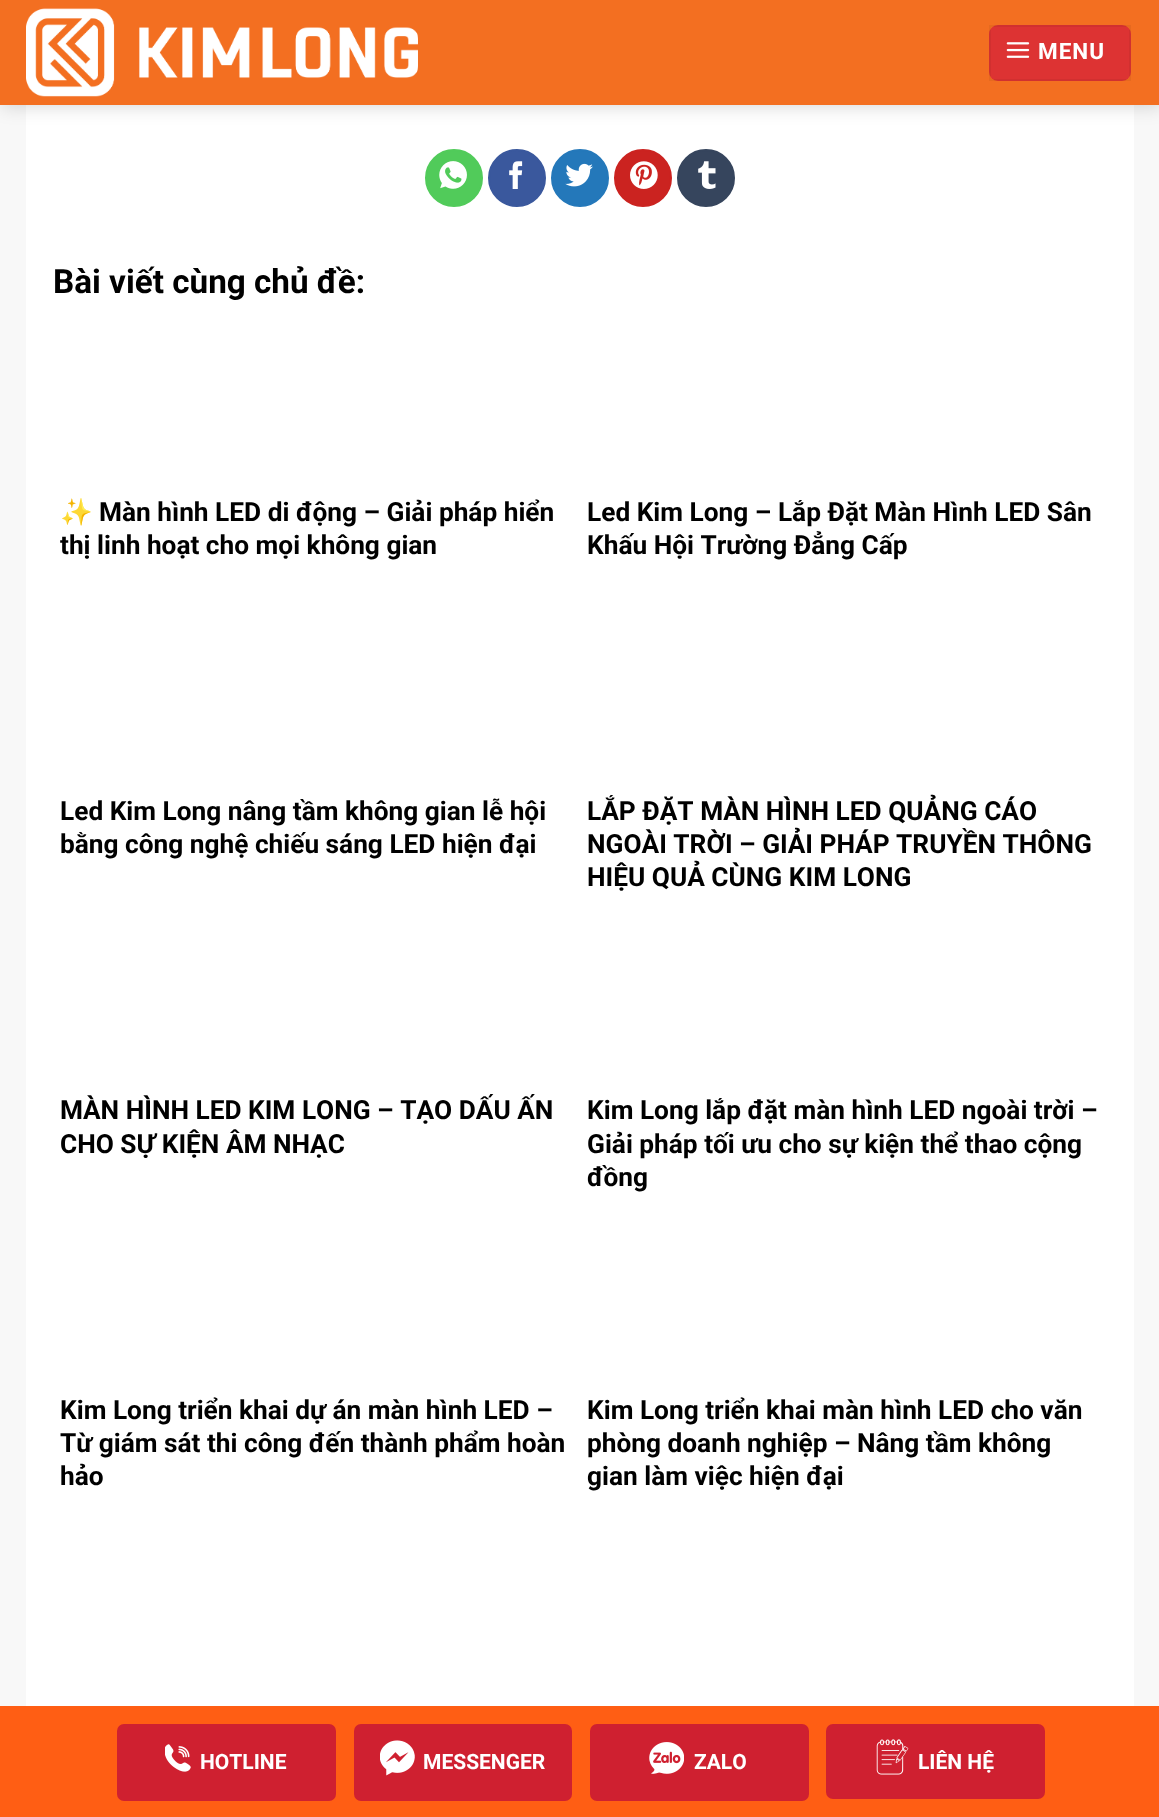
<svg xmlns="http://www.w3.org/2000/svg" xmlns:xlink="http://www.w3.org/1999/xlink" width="1159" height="1817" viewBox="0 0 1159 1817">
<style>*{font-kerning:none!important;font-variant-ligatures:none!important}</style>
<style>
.cls-1{font:bold 22.5px Roboto;letter-spacing:1px;fill:#ffffff}
.cls-2{font:bold 33.25px Roboto;fill:#000000}
.cls-3{font:bold 26.25px Noto Color Emoji;fill:#000000}
.cls-4{font:bold 26.25px Roboto;fill:#000000}
.cls-5{font:bold 21px Roboto;fill:#ffffff}
</style>
<defs>
<clipPath id="clip1"><rect x="60" y="483" width="512" height="112"/></clipPath>
</defs>
<rect width="100%" height="100%" fill="#f8f8f8"/>
<rect fill="#ffffff" x="26" y="105" width="1108" height="1601"/>
<rect fill="#000000" fill-opacity="0.15" filter="blur(9px)" x="2" y="2" width="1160" height="105"/>
<rect fill="#f36f21" x="0" y="0" width="1159" height="105"/>
<image xlink:href="image0.png" x="26" y="8" width="392" height="89"/>
<rect fill="#dd3333" x="989" y="25" width="142" height="56" rx="9"/>
<rect fill="none" stroke="#000000" stroke-opacity="0.05" stroke-width="2" x="990" y="26" width="140" height="54"/>
<image xlink:href="image1.png" x="1006" y="42" width="24" height="16"/>
<circle fill="#51cb5a" stroke="#51cb5a" stroke-width="2" cx="454" cy="178" r="28"/>
<image xlink:href="image2.png" x="439" y="161" width="28" height="28"/>
<circle fill="#3a589d" stroke="#3a589d" stroke-width="2" cx="517" cy="178" r="28"/>
<image xlink:href="image3.png" x="509" y="161" width="14" height="28"/>
<circle fill="#2478ba" stroke="#2478ba" stroke-width="2" cx="580" cy="178" r="28"/>
<image xlink:href="image4.png" x="565" y="163" width="28" height="24"/>
<circle fill="#cb2320" stroke="#cb2320" stroke-width="2" cx="643" cy="178" r="28"/>
<image xlink:href="image5.png" x="630" y="161" width="28" height="28"/>
<circle fill="#36455d" stroke="#36455d" stroke-width="2" cx="706" cy="178" r="28"/>
<image xlink:href="image6.png" x="698" y="161" width="18" height="28"/>
<rect fill="#ff5e14" x="0" y="1706" width="1159" height="111"/>
<rect fill="#cf2030" x="117" y="1724" width="219" height="77" rx="7"/>
<image xlink:href="image7.png" x="165" y="1744" width="26" height="28"/>
<rect fill="#cf2030" x="354" y="1724" width="218" height="77" rx="7"/>
<image xlink:href="image8.png" x="380" y="1740" width="35" height="36"/>
<rect fill="#cf2030" x="590" y="1724" width="219" height="77" rx="7"/>
<image xlink:href="image9.png" x="649" y="1742" width="35" height="32"/>
<rect fill="#cf2030" x="826" y="1724" width="219" height="75" rx="7"/>
<image xlink:href="image10.png" x="876" y="1739" width="33" height="36"/>
<text class="cls-1" x="1038" y="59">MENU</text>
<text class="cls-2" x="53" y="293">Bài viết cùng chủ đề:</text>
<g clip-path="url(#clip1)">
<text class="cls-3" x="60" y="521">✨</text>
</g>
<text class="cls-4" x="99" y="521">Màn hình LED di động – Giải pháp hiển</text>
<g clip-path="url(#clip1)">
<text class="cls-4" x="60" y="554">thị linh hoạt cho mọi không gian</text>
</g>
<text class="cls-4"><tspan x="587" y="521">Led Kim Long – Lắp Đặt Màn Hình LED Sân</tspan><tspan x="587" y="554">Khấu Hội Trường Đẳng Cấp</tspan></text>
<text class="cls-4"><tspan x="60" y="820">Led Kim Long nâng tầm không gian lễ hội</tspan><tspan x="60" y="853">bằng công nghệ chiếu sáng LED hiện đại</tspan></text>
<text class="cls-4"><tspan x="587" y="820">LẮP ĐẶT MÀN HÌNH LED QUẢNG CÁO</tspan><tspan x="587" y="853">NGOÀI TRỜI – GIẢI PHÁP TRUYỀN THÔNG</tspan><tspan x="587" y="886">HIỆU QUẢ CÙNG KIM LONG</tspan></text>
<text class="cls-4"><tspan x="60" y="1119">MÀN HÌNH LED KIM LONG – TẠO DẤU ẤN</tspan><tspan x="60" y="1153">CHO SỰ KIỆN ÂM NHẠC</tspan></text>
<text class="cls-4"><tspan x="587" y="1119">Kim Long lắp đặt màn hình LED ngoài trời –</tspan><tspan x="587" y="1153">Giải pháp tối ưu cho sự kiện thể thao cộng</tspan><tspan x="587" y="1186">đồng</tspan></text>
<text class="cls-4"><tspan x="60" y="1419">Kim Long triển khai dự án màn hình LED –</tspan><tspan x="60" y="1452">Từ giám sát thi công đến thành phẩm hoàn</tspan><tspan x="60" y="1485">hảo</tspan></text>
<text class="cls-4"><tspan x="587" y="1419">Kim Long triển khai màn hình LED cho văn</tspan><tspan x="587" y="1452">phòng doanh nghiệp – Nâng tầm không</tspan><tspan x="587" y="1485">gian làm việc hiện đại</tspan></text>
<text class="cls-5" x="200" y="1769">HOTLINE</text>
<text class="cls-5" x="423" y="1769">MESSENGER</text>
<text class="cls-5" x="694" y="1769">ZALO</text>
<text class="cls-5" x="918" y="1769">LIÊN HỆ</text>
</svg>
